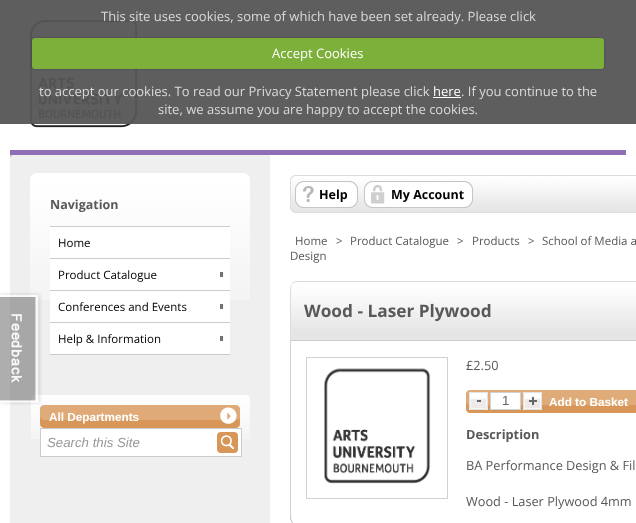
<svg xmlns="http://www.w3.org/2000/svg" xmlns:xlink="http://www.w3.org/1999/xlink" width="636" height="523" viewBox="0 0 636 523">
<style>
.cls-1{font:13px Open Sans;fill:#dadada}
.cls-2{font:13px Open Sans;fill:#ffffff}
.cls-3{font:bold 12.5px Open Sans;fill:#58595b}
.cls-4{font:11.5px Open Sans;fill:#000000}
.cls-5{font:bold 11.75px Liberation Sans;fill:#ffffff}
.cls-6{font:italic 13.25px Liberation Sans;fill:#999999}
.cls-7{font:bold 12.5px Open Sans;fill:#000000}
.cls-8{font:11.5px Open Sans;fill:#58595b}
.cls-9{font:11.5px Open Sans;fill:#666666}
.cls-10{font:bold 17.25px Open Sans;fill:#58595b}
.cls-11{font:12.75px Open Sans;fill:#58595b}
.cls-12{font:13.25px Liberation Sans;fill:#666666}
.cls-13{font:bold 12.75px Open Sans;fill:#58595b}
</style>
<rect width="100%" height="100%" fill="#ffffff"/>
<rect fill="#5e5e5e" x="0" y="0" width="636" height="124"/>
<image xlink:href="image1.png" x="30" y="20" width="107" height="108"/>
<rect fill="#000000" fill-opacity="0.25" filter="blur(1px)" x="32" y="38" width="572" height="31" rx="3"/>
<rect fill="#7daf3b" x="32" y="38" width="572" height="31" rx="3"/>
<rect fill="#ffffff" x="433" y="97" width="28" height="1"/>
<rect fill="#efefef" x="10" y="155" width="260" height="368"/>
<image xlink:href="image2.png" x="30" y="173" width="220" height="127"/>
<image xlink:href="image3.png" x="31" y="395" width="219" height="44"/>
<image xlink:href="image0.png" x="0" y="292" width="42" height="113"/>
<rect fill="#906eb5" x="10" y="150" width="616" height="5"/>
<rect fill="#cccccc" x="10" y="155" width="2" height="2"/>
<rect fill="#cccccc" x="50" y="226" width="180" height="1"/>
<rect fill="#ffffff" x="50" y="227" width="180" height="31"/>
<rect fill="#cccccc" x="50" y="258" width="180" height="1"/>
<rect fill="#ffffff" x="50" y="259" width="180" height="31"/>
<rect fill="#cccccc" x="50" y="290" width="180" height="1"/>
<rect fill="#717171" x="220" y="272" width="3" height="5"/>
<rect fill="#ffffff" x="50" y="291" width="180" height="31"/>
<rect fill="#cccccc" x="50" y="322" width="180" height="1"/>
<rect fill="#717171" x="220" y="304" width="3" height="5"/>
<rect fill="#ffffff" x="50" y="323" width="180" height="31"/>
<rect fill="#cccccc" x="50" y="354" width="180" height="1"/>
<rect fill="#717171" x="220" y="336" width="3" height="5"/>
<rect fill="#d89758" x="40" y="405" width="200" height="23"/>
<image xlink:href="image4.png" x="40" y="405" width="200" height="23"/>
<image xlink:href="image5.png" x="49" y="405" width="191" height="23"/>
<rect fill="#ffffff" stroke="#cccccc" x="40.5" y="428.5" width="201" height="28"/>
<rect fill="#d89758" x="217" y="432" width="21" height="21"/>
<image xlink:href="image6.png" x="217" y="432" width="21" height="21"/>
<image xlink:href="image7.png" x="290" y="175" width="346" height="38"/>
<image xlink:href="image8.png" x="295" y="181" width="63" height="27"/>
<image xlink:href="image9.png" x="364" y="181" width="109" height="27"/>
<rect fill="none" stroke="#d1d1d1" x="290.5" y="281.5" width="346" height="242"/>
<rect fill="#e5e5e5" x="290" y="338" width="2" height="2"/>
<image xlink:href="image10.png" x="290" y="281" width="2" height="57"/>
<rect fill="#cccccc" x="290" y="340" width="346" height="1"/>
<rect fill="#e5e5e5" x="292" y="329" width="344" height="11"/>
<image xlink:href="image11.png" x="292" y="281" width="344" height="48"/>
<rect fill="none" stroke="#d1d1d1" x="306.5" y="357.5" width="141" height="141"/>
<image xlink:href="image12.png" x="324" y="368" width="107" height="116"/>
<rect fill="#d89758" x="466" y="390" width="170" height="23"/>
<image xlink:href="image15.png" x="466" y="390" width="9" height="23"/>
<rect fill="#dfab78" x="475" y="390" width="161" height="15"/>
<image xlink:href="image13.png" x="469" y="392" width="19" height="18"/>
<rect fill="#ffffff" stroke="#d1d1d1" x="490.5" y="392.5" width="30" height="17"/>
<image xlink:href="image14.png" x="523" y="392" width="19" height="18"/>
<image xlink:href="image16.png" x="290" y="515" width="3" height="8"/>
<text class="cls-1" x="101" y="21">This site uses cookies, some of which have been set already. Please click</text>
<text class="cls-2" x="272" y="58">Accept Cookies</text>
<text class="cls-1" x="39" y="96">to accept our cookies. To read our Privacy Statement please click</text>
<text class="cls-2" x="433" y="96">here</text>
<text class="cls-1" x="461" y="96">. If you continue to the</text>
<text class="cls-1" x="158" y="114">site, we assume you are happy to accept the cookies.</text>
<text class="cls-3" x="50" y="209">Navigation</text>
<text class="cls-4" x="58" y="247">Home</text>
<text class="cls-4" x="58" y="279">Product Catalogue</text>
<text class="cls-4" x="58" y="311">Conferences and Events</text>
<text class="cls-4" x="58" y="343">Help &amp; Information</text>
<text class="cls-5" x="49" y="421">All Departments</text>
<text class="cls-6" x="47" y="447">Search this Site</text>
<text class="cls-7" x="319" y="199">Help</text>
<text class="cls-7" x="391" y="199">My Account</text>
<text class="cls-8" x="295" y="245">Home</text>
<text class="cls-9" x="336" y="245">&gt;</text>
<text class="cls-8" x="350" y="245">Product Catalogue</text>
<text class="cls-9" x="457" y="245">&gt;</text>
<text class="cls-8" x="472" y="245">Products</text>
<text class="cls-9" x="528" y="245">&gt;</text>
<text class="cls-8" x="542" y="245">School of Media a</text>
<text class="cls-8" x="290" y="260">Design</text>
<text class="cls-10" x="304" y="317">Wood - Laser Plywood</text>
<text class="cls-11" x="466" y="370">£2.50</text>
<text class="cls-12" x="502" y="405">1</text>
<text class="cls-5" x="549" y="406">Add to Basket</text>
<text class="cls-13" x="466" y="439">Description</text>
<text class="cls-11" x="466" y="470">BA Performance Design &amp; Fil</text>
<text class="cls-11" x="466" y="506">Wood - Laser Plywood 4mm</text>
</svg>
